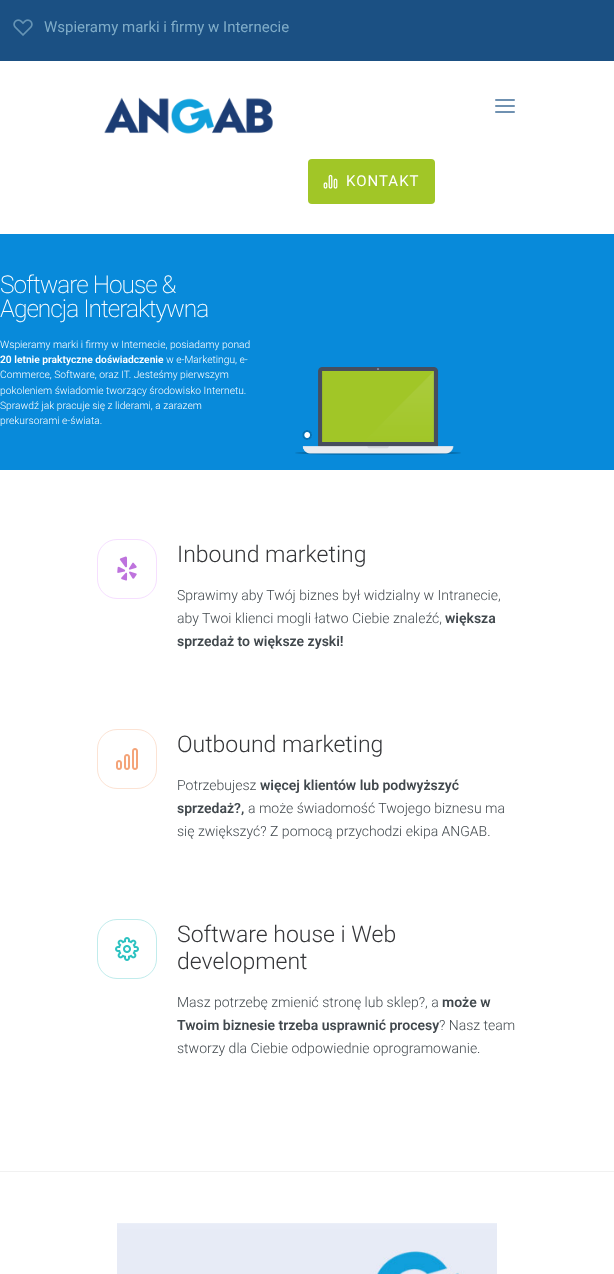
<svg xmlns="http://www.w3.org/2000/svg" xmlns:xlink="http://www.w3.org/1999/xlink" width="614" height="1274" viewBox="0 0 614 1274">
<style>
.cls-1{font:15px Roboto;fill:#7facc8}
.cls-2{font:15px Roboto;letter-spacing:1px;fill:#ffffff}
.cls-3{font:200 24.5px Roboto;letter-spacing:-1px;fill:#ffffff}
.cls-4{font:300 10.25px Roboto;fill:#ffffff}
.cls-5{font:600 10.25px Roboto;fill:#ffffff}
.cls-6{font:300 23px Roboto;fill:#353639}
.cls-7{font:300 14px Roboto;fill:#41484d}
.cls-8{font:600 14px Roboto;fill:#41484d}
</style>
<rect width="100%" height="100%" fill="#ffffff"/>
<rect fill="#1b5083" x="0" y="0" width="614" height="61"/>
<image xlink:href="image0.png" x="13" y="19" width="20" height="17"/>
<image xlink:href="image1.png" x="104" y="97" width="169" height="37"/>
<image xlink:href="image2.png" x="495" y="99" width="20" height="14"/>
<rect fill="#a1c627" x="308" y="159" width="127" height="45" rx="4"/>
<image xlink:href="image3.png" x="323" y="174" width="15" height="15"/>
<rect fill="#088ada" x="0" y="234" width="614" height="236"/>
<image xlink:href="image4.png" x="295" y="367" width="166" height="88"/>
<image xlink:href="image5.png" x="302" y="430" width="10" height="10"/>
<rect fill="#f1f1f1" x="0" y="1171" width="614" height="1"/>
<rect fill="none" stroke="#f6dfff" x="97.5" y="539.5" width="59" height="59" rx="19.5"/>
<image xlink:href="image6.png" x="117" y="556" width="20" height="25"/>
<rect fill="none" stroke="#fce3d4" x="97.5" y="729.5" width="59" height="59" rx="19.5"/>
<image xlink:href="image7.png" x="116" y="748" width="22" height="22"/>
<rect fill="none" stroke="#c1ecec" x="97.5" y="919.5" width="59" height="59" rx="19.5"/>
<image xlink:href="image8.png" x="115" y="937" width="24" height="24"/>
<image xlink:href="image9.png" x="117" y="1223" width="380" height="51"/>
<text class="cls-1" x="44" y="32">Wspieramy marki i firmy w Internecie</text>
<text class="cls-2" x="346" y="186">KONTAKT</text>
<text class="cls-3"><tspan x="0" y="293">Software House &amp;</tspan><tspan x="0" y="317">Agencja Interaktywna</tspan></text>
<text class="cls-4" x="0" y="348">Wspieramy marki i firmy w Internecie, posiadamy ponad</text>
<text class="cls-5" x="0" y="363">20 letnie praktyczne doświadczenie</text>
<text class="cls-4" x="166" y="363">w e-Marketingu, e-</text>
<text class="cls-4"><tspan x="0" y="378">Commerce, Software, oraz IT. Jesteśmy pierwszym</tspan><tspan x="0" y="394">pokoleniem świadomie tworzący środowisko Internetu.</tspan><tspan x="0" y="409">Sprawdź jak pracuje się z liderami, a zarazem</tspan><tspan x="0" y="424">prekursorami e-świata.</tspan></text>
<text class="cls-6" x="177" y="562">Inbound marketing</text>
<text class="cls-7"><tspan x="177" y="600">Sprawimy aby Twój biznes był widzialny w Intranecie,</tspan><tspan x="177" y="623">aby Twoi klienci mogli łatwo Ciebie znaleźć,</tspan></text>
<text class="cls-8" x="445" y="623">większa</text>
<text class="cls-8" x="177" y="646">sprzedaż to większe zyski!</text>
<text class="cls-6" x="177" y="752">Outbound marketing</text>
<text class="cls-7" x="177" y="790">Potrzebujesz</text>
<text class="cls-8" x="260" y="790">więcej klientów lub podwyższyć</text>
<text class="cls-8" x="177" y="813">sprzedaż?,</text>
<text class="cls-7" x="248" y="813">a może świadomość Twojego biznesu ma</text>
<text class="cls-7" x="177" y="836">się zwiększyć? Z pomocą przychodzi ekipa ANGAB.</text>
<text class="cls-6"><tspan x="177" y="942">Software house i Web</tspan><tspan x="177" y="969">development</tspan></text>
<text class="cls-7" x="177" y="1007">Masz potrzebę zmienić stronę lub sklep?, a</text>
<text class="cls-8" x="442" y="1007">może w</text>
<text class="cls-8" x="177" y="1030">Twoim biznesie trzeba usprawnić procesy</text>
<text class="cls-7" x="439" y="1030">? Nasz team</text>
<text class="cls-7" x="177" y="1053">stworzy dla Ciebie odpowiednie oprogramowanie.</text>
</svg>
